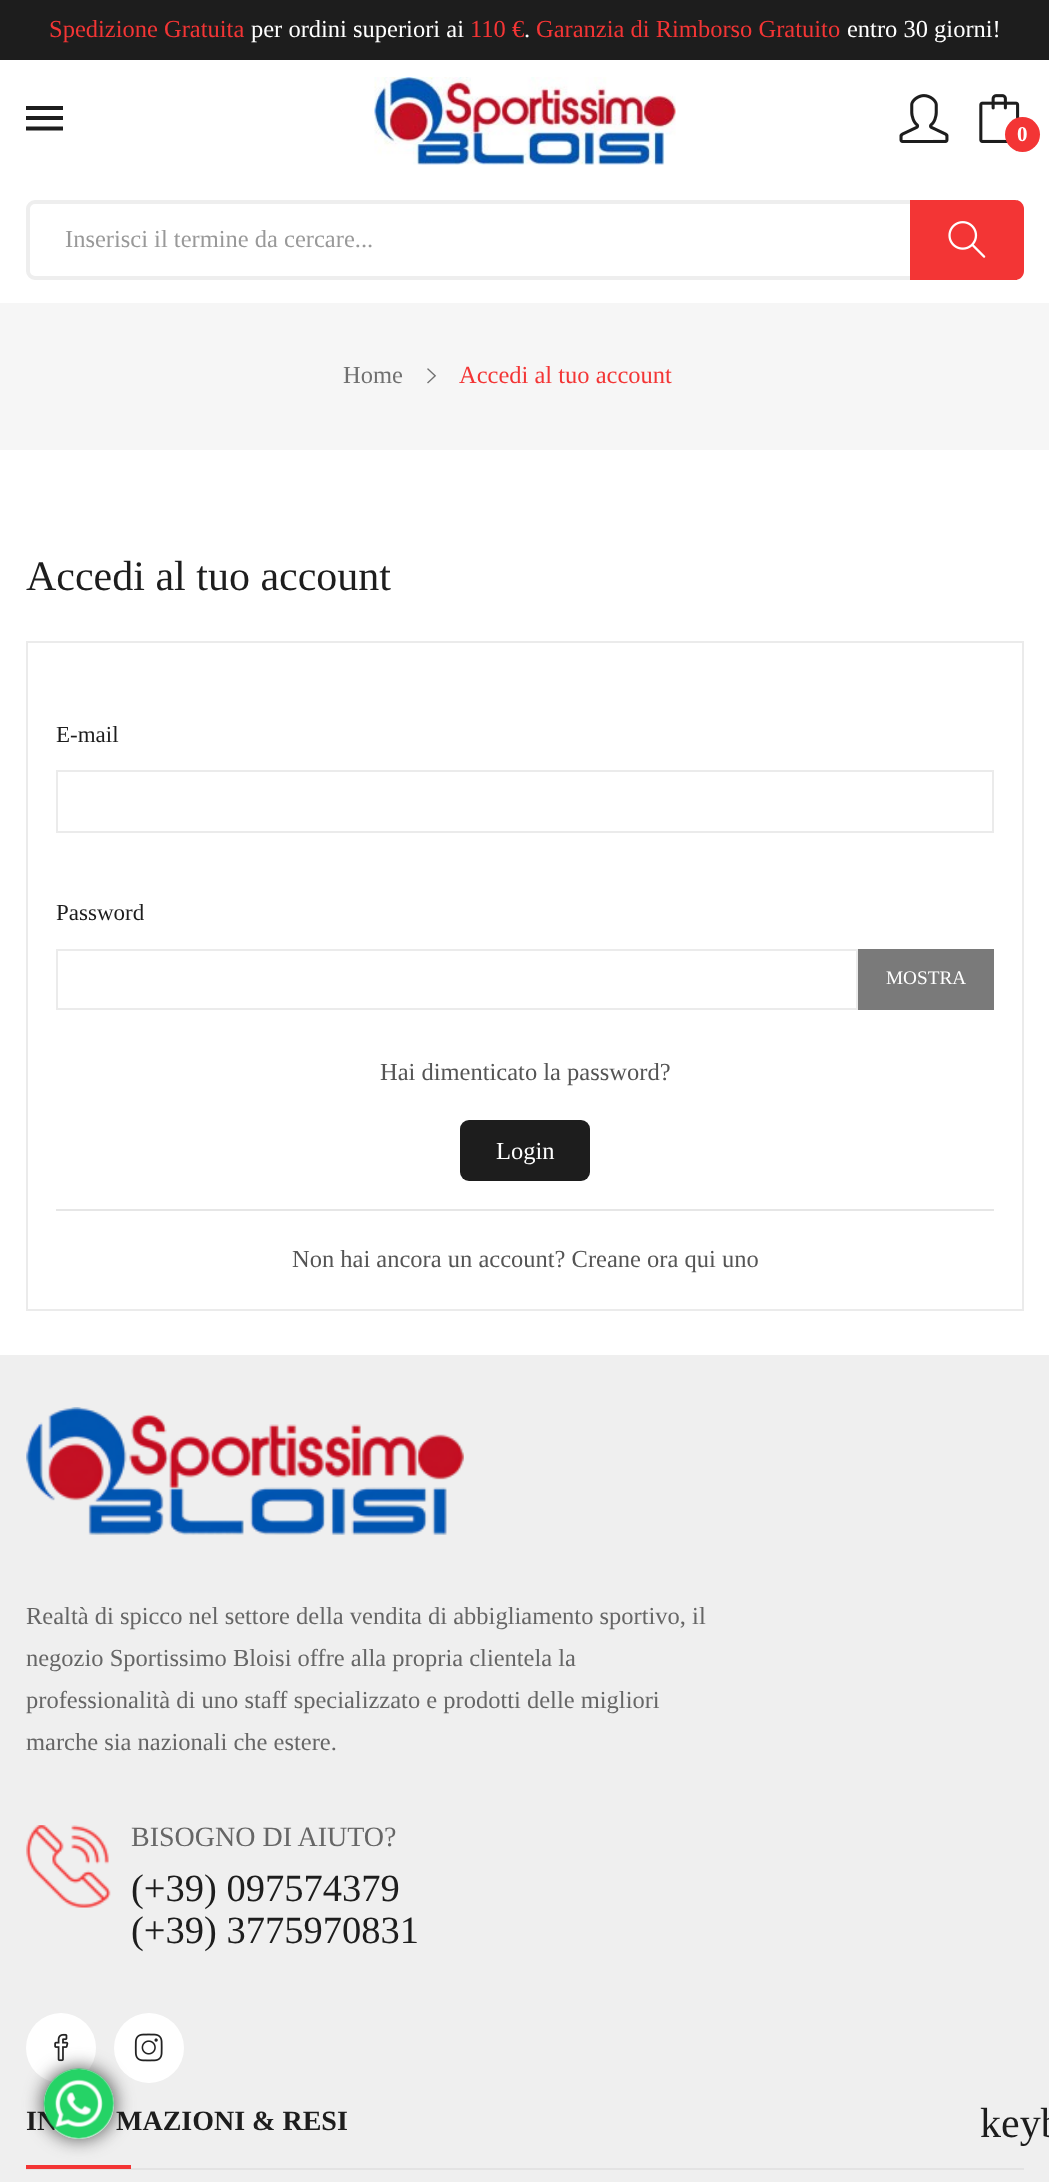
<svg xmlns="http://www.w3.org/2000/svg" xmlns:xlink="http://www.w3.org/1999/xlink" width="1049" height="2182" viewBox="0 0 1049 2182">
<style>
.cls-1{font:24.5px Liberation Serif;fill:#f33535}
.cls-2{font:24.5px Liberation Serif;fill:#ffffff}
.cls-3{font:bold 21px Liberation Serif;fill:#ffffff}
.cls-4{font:24.5px Liberation Serif;fill:#999999}
.cls-5{font:24.5px Liberation Serif;fill:#707070}
.cls-6{font:42px Liberation Serif;fill:#1d1d1d}
.cls-7{font:23px Liberation Serif;fill:#1d1d1d}
.cls-8{font:19.25px Liberation Serif;fill:#ffffff}
.cls-9{font:24.5px Liberation Serif;fill:#555555}
.cls-10{font:24.5px Liberation Serif;fill:#666666}
.cls-11{font:28px Liberation Serif;fill:#666666}
.cls-12{font:38.5px Liberation Serif;fill:#1d1d1d}
.cls-13{font:bold 28px Liberation Serif;fill:#1d1d1d}
</style>
<defs>
<clipPath id="clip1"><path d="M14 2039H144V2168H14ZM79 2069C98.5 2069 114 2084.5 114 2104C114 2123.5 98.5 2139 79 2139C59.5 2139 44 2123.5 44 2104C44 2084.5 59.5 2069 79 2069Z" clip-rule="evenodd"/></clipPath>
</defs>
<rect width="100%" height="100%" fill="#ffffff"/>
<rect fill="#1d1d1d" x="0" y="0" width="1049" height="60"/>
<path fill="#1d1d1d" d="M26 130.5V126.5H63V130.5ZM26 120V116H63V120ZM26 106H63V110H26Z"/>
<image xlink:href="image0.png" x="374" y="77" width="302" height="88"/>
<image xlink:href="image1.png" x="899" y="94" width="50" height="49"/>
<image xlink:href="image2.png" x="979" y="94" width="41" height="49"/>
<circle fill="#f33535" cx="1022.5" cy="134.5" r="17.5"/>
<rect fill="none" stroke="#eeeeee" stroke-width="4" x="28" y="202" width="994" height="76" rx="7"/>
<path fill="#f33535" d="M910 200H1015C1020 200 1024 204 1024 209V271C1024 276 1020 280 1015 280H910Z"/>
<image xlink:href="image3.png" x="948" y="221" width="38" height="37"/>
<rect fill="#f6f6f6" x="0" y="303" width="1049" height="147"/>
<image xlink:href="image4.png" x="427" y="368" width="10" height="16"/>
<rect fill="none" stroke="#ebebeb" stroke-width="2" x="27" y="642" width="996" height="668"/>
<rect fill="none" stroke="#ebebeb" stroke-width="2" x="57" y="771" width="936" height="61"/>
<rect fill="none" stroke="#ebebeb" stroke-width="2" x="57" y="950" width="800" height="59"/>
<rect fill="#7a7a7a" x="858" y="949" width="136" height="61"/>
<rect fill="#1d1d1d" x="460" y="1120" width="130" height="61" rx="9"/>
<rect fill="#e6e6e6" x="56" y="1209" width="938" height="2"/>
<rect fill="#efefef" x="0" y="1355" width="1049" height="827"/>
<image xlink:href="image5.png" x="26" y="1407" width="438" height="128"/>
<image xlink:href="image6.png" x="26" y="1825" width="85" height="83"/>
<circle fill="#ffffff" cx="61" cy="2048" r="35"/>
<image xlink:href="image7.png" x="54" y="2033" width="15" height="29"/>
<circle fill="#ffffff" cx="149" cy="2048" r="35"/>
<image xlink:href="image8.png" x="134" y="2033" width="29" height="29"/>
<rect fill="#e3e3e3" x="26" y="2168" width="998" height="2"/>
<rect fill="#f33535" x="26" y="2165" width="105" height="4"/>
<g clip-path="url(#clip1)">
<rect fill="#3d3d3d" fill-opacity="0.8" filter="blur(9px)" x="42" y="2067" width="74" height="73" rx="36.5"/>
</g>
<text class="cls-1" x="49" y="37">Spedizione Gratuita</text>
<text class="cls-2" x="251" y="37">per ordini superiori ai</text>
<text class="cls-1" x="470" y="37">110 €</text>
<text class="cls-2" x="524" y="37">.</text>
<text class="cls-1" x="536" y="37">Garanzia di Rimborso Gratuito</text>
<text class="cls-2" x="847" y="37">entro 30 giorni!</text>
<text class="cls-3" x="1017" y="141">0</text>
<text class="cls-4" x="65" y="247">Inserisci il termine da cercare...</text>
<text class="cls-5" x="343" y="383">Home</text>
<text class="cls-1" x="459" y="383">Accedi al tuo account</text>
<text class="cls-6" x="26" y="590">Accedi al tuo account</text>
<text class="cls-7" x="56" y="742">E-mail</text>
<text class="cls-7" x="56" y="920">Password</text>
<text class="cls-8" x="886" y="984">MOSTRA</text>
<text class="cls-9" x="380" y="1080">Hai dimenticato la password?</text>
<text class="cls-2" x="496" y="1159">Login</text>
<text class="cls-9" x="292" y="1267">Non hai ancora un account? Creane ora qui uno</text>
<text class="cls-10"><tspan x="26" y="1624">Realtà di spicco nel settore della vendita di abbigliamento sportivo, il</tspan><tspan x="26" y="1666">negozio Sportissimo Bloisi offre alla propria clientela la</tspan><tspan x="26" y="1708">professionalità di uno staff specializzato e prodotti delle migliori</tspan><tspan x="26" y="1750">marche sia nazionali che estere.</tspan></text>
<text class="cls-11" x="131" y="1846">BISOGNO DI AIUTO?</text>
<text class="cls-12"><tspan x="131" y="1901">(+39) 097574379</tspan><tspan x="131" y="1943">(+39) 3775970831</tspan></text>
<text class="cls-13" x="26" y="2130">IN</text>
<text class="cls-13" x="116" y="2130">MAZIONI &amp; RESI</text>
<text class="cls-6" x="980" y="2137">keyb</text>
<image xlink:href="image9.png" x="43" y="2068" width="71" height="71"/>
</svg>
